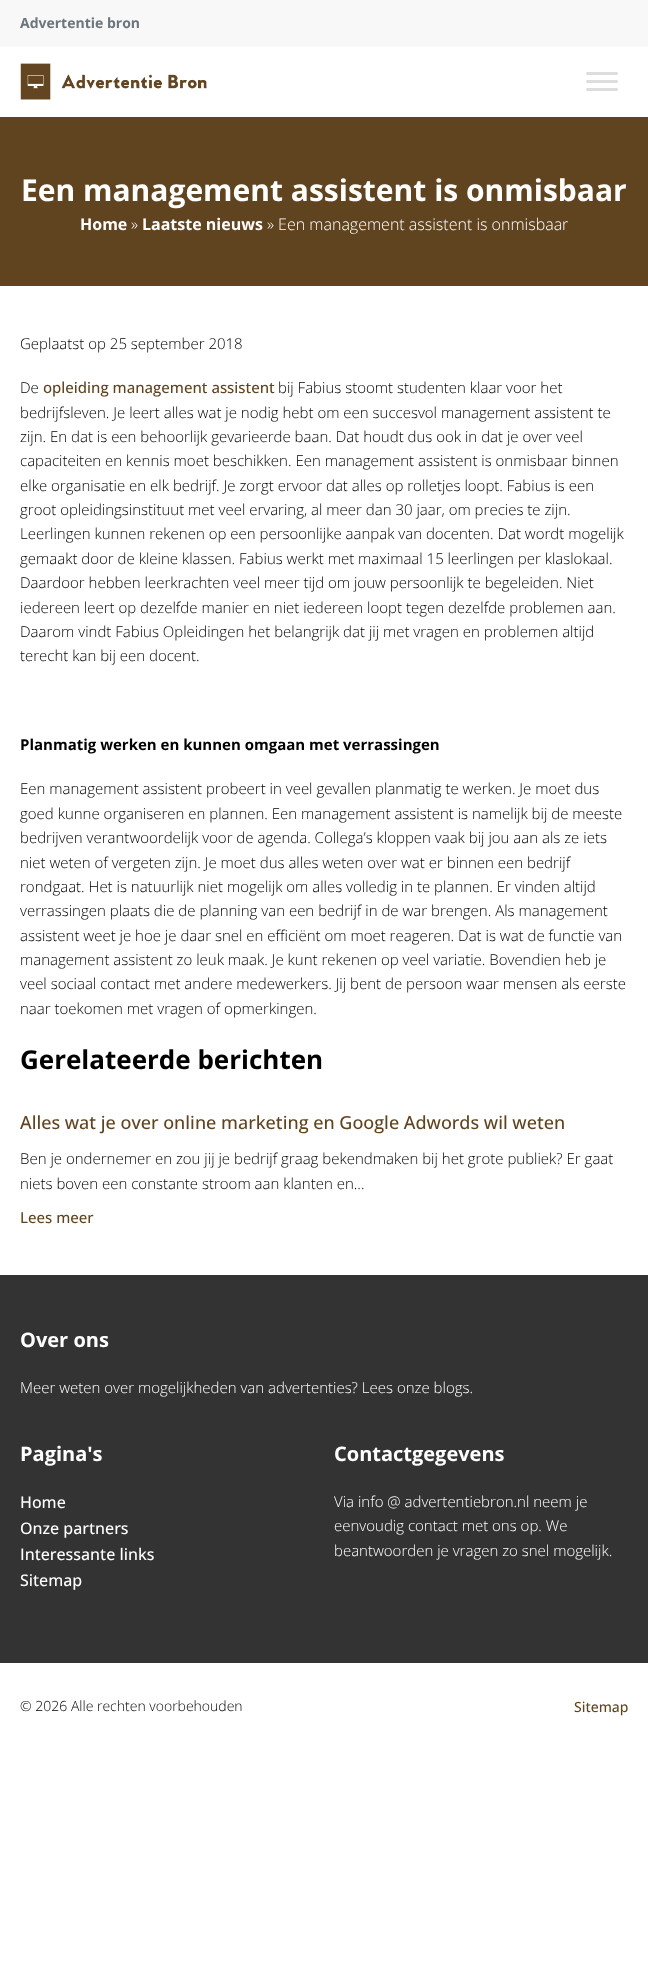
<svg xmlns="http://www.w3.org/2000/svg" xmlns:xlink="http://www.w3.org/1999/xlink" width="648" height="1982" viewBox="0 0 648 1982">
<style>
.cls-1{font:bold 14px Open Sans;fill:#6c757d}
.cls-2{font:bold 30px Open Sans;fill:#ffffff}
.cls-3{font:bold 16px Open Sans;fill:#ffffff}
.cls-4{font:300 16px Open Sans;fill:#ffffff}
.cls-5{font:300 15px Open Sans;fill:#000000}
.cls-6{font:500 15px Open Sans;fill:#604420}
.cls-7{font:bold 15px Open Sans;fill:#000000}
.cls-8{font:bold 26px Open Sans;fill:#000000}
.cls-9{font:500 18px Open Sans;fill:#604420}
.cls-10{font:bold 20px Open Sans;fill:#ffffff}
.cls-11{font:300 15px Open Sans;fill:#ffffff}
.cls-12{font:500 16px Open Sans;fill:#ffffff}
.cls-13{font:300 14px Open Sans;fill:#000000}
.cls-14{font:500 14px Open Sans;fill:#604420}
</style>
<rect width="100%" height="100%" fill="#ffffff"/>
<rect fill="#f8f8f8" x="0" y="0" width="648" height="47"/>
<image xlink:href="image0.png" x="20" y="63" width="187" height="37"/>
<rect fill="#dddddd" x="586" y="72" width="32" height="3" rx="1.5"/>
<rect fill="#dddddd" x="586" y="80" width="32" height="3" rx="1.5"/>
<rect fill="#dddddd" x="586" y="88" width="32" height="3" rx="1.5"/>
<rect fill="#604420" x="0" y="117" width="648" height="169"/>
<rect fill="#333333" x="0" y="1275" width="648" height="388"/>
<text class="cls-1" x="20" y="28">Advertentie bron</text>
<text class="cls-2" x="21" y="201">Een management assistent is onmisbaar</text>
<text class="cls-3" x="80" y="230">Home</text>
<text class="cls-4" x="131" y="230">»</text>
<text class="cls-3" x="142" y="230">Laatste nieuws</text>
<text class="cls-4" x="267" y="230">» Een management assistent is onmisbaar</text>
<text class="cls-5" x="20" y="349">Geplaatst op 25 september 2018</text>
<text class="cls-5" x="20" y="393">De</text>
<text class="cls-6" x="43" y="393">opleiding management assistent</text>
<text class="cls-5" x="278" y="393">bij Fabius stoomt studenten klaar voor het</text>
<text class="cls-5"><tspan x="20" y="418">bedrijfsleven. Je leert alles wat je nodig hebt om een succesvol management assistent te</tspan><tspan x="20" y="442">zijn. En dat is een behoorlijk gevarieerde baan. Dat houdt dus ook in dat je over veel</tspan><tspan x="20" y="466">capaciteiten en kennis moet beschikken. Een management assistent is onmisbaar binnen</tspan><tspan x="20" y="491">elke organisatie en elk bedrijf. Je zorgt ervoor dat alles op rolletjes loopt. Fabius is een</tspan><tspan x="20" y="515">groot opleidingsinstituut met veel ervaring, al meer dan 30 jaar, om precies te zijn.</tspan><tspan x="20" y="539">Leerlingen kunnen rekenen op een persoonlijke aanpak van docenten. Dat wordt mogelijk</tspan><tspan x="20" y="564">gemaakt door de kleine klassen. Fabius werkt met maximaal 15 leerlingen per klaslokaal.</tspan><tspan x="20" y="588">Daardoor hebben leerkrachten veel meer tijd om jouw persoonlijk te begeleiden. Niet</tspan><tspan x="20" y="613">iedereen leert op dezelfde manier en niet iedereen loopt tegen dezelfde problemen aan.</tspan><tspan x="20" y="637">Daarom vindt Fabius Opleidingen het belangrijk dat jij met vragen en problemen altijd</tspan><tspan x="20" y="661">terecht kan bij een docent.</tspan></text>
<text class="cls-7" x="20" y="750">Planmatig werken en kunnen omgaan met verrassingen</text>
<text class="cls-5"><tspan x="20" y="794">Een management assistent probeert in veel gevallen planmatig te werken. Je moet dus</tspan><tspan x="20" y="819">goed kunne organiseren en plannen. Een management assistent is namelijk bij de meeste</tspan><tspan x="20" y="843">bedrijven verantwoordelijk voor de agenda. Collega’s kloppen vaak bij jou aan als ze iets</tspan><tspan x="20" y="868">niet weten of vergeten zijn. Je moet dus alles weten over wat er binnen een bedrijf</tspan><tspan x="20" y="892">rondgaat. Het is natuurlijk niet mogelijk om alles volledig in te plannen. Er vinden altijd</tspan><tspan x="20" y="916">verrassingen plaats die de planning van een bedrijf in de war brengen. Als management</tspan><tspan x="20" y="941">assistent weet je hoe je daar snel en efficiënt om moet reageren. Dat is wat de functie van</tspan><tspan x="20" y="965">management assistent zo leuk maak. Je kunt rekenen op veel variatie. Bovendien heb je</tspan><tspan x="20" y="989">veel sociaal contact met andere medewerkers. Jij bent de persoon waar mensen als eerste</tspan><tspan x="20" y="1014">naar toekomen met vragen of opmerkingen.</tspan></text>
<text class="cls-8" x="20" y="1069">Gerelateerde berichten</text>
<text class="cls-9" x="20" y="1129">Alles wat je over online marketing en Google Adwords wil weten</text>
<text class="cls-5"><tspan x="20" y="1164">Ben je ondernemer en zou jij je bedrijf graag bekendmaken bij het grote publiek? Er gaat</tspan><tspan x="20" y="1189">niets boven een constante stroom aan klanten en...</tspan></text>
<text class="cls-6" x="20" y="1223">Lees meer</text>
<text class="cls-10" x="20" y="1347">Over ons</text>
<text class="cls-11" x="20" y="1393">Meer weten over mogelijkheden van advertenties? Lees onze blogs.</text>
<text class="cls-10" x="20" y="1461">Pagina's</text>
<text class="cls-12"><tspan x="20" y="1508">Home</tspan><tspan x="20" y="1534">Onze partners</tspan><tspan x="20" y="1560">Interessante links</tspan><tspan x="20" y="1586">Sitemap</tspan></text>
<text class="cls-10" x="334" y="1461">Contactgegevens</text>
<text class="cls-11"><tspan x="334" y="1507">Via info @ advertentiebron.nl neem je</tspan><tspan x="334" y="1531">eenvoudig contact met ons op. We</tspan><tspan x="334" y="1556">beantwoorden je vragen zo snel mogelijk.</tspan></text>
<text class="cls-13" x="20" y="1711">© 2026 Alle rechten voorbehouden</text>
<text class="cls-14" x="574" y="1712">Sitemap</text>
</svg>
